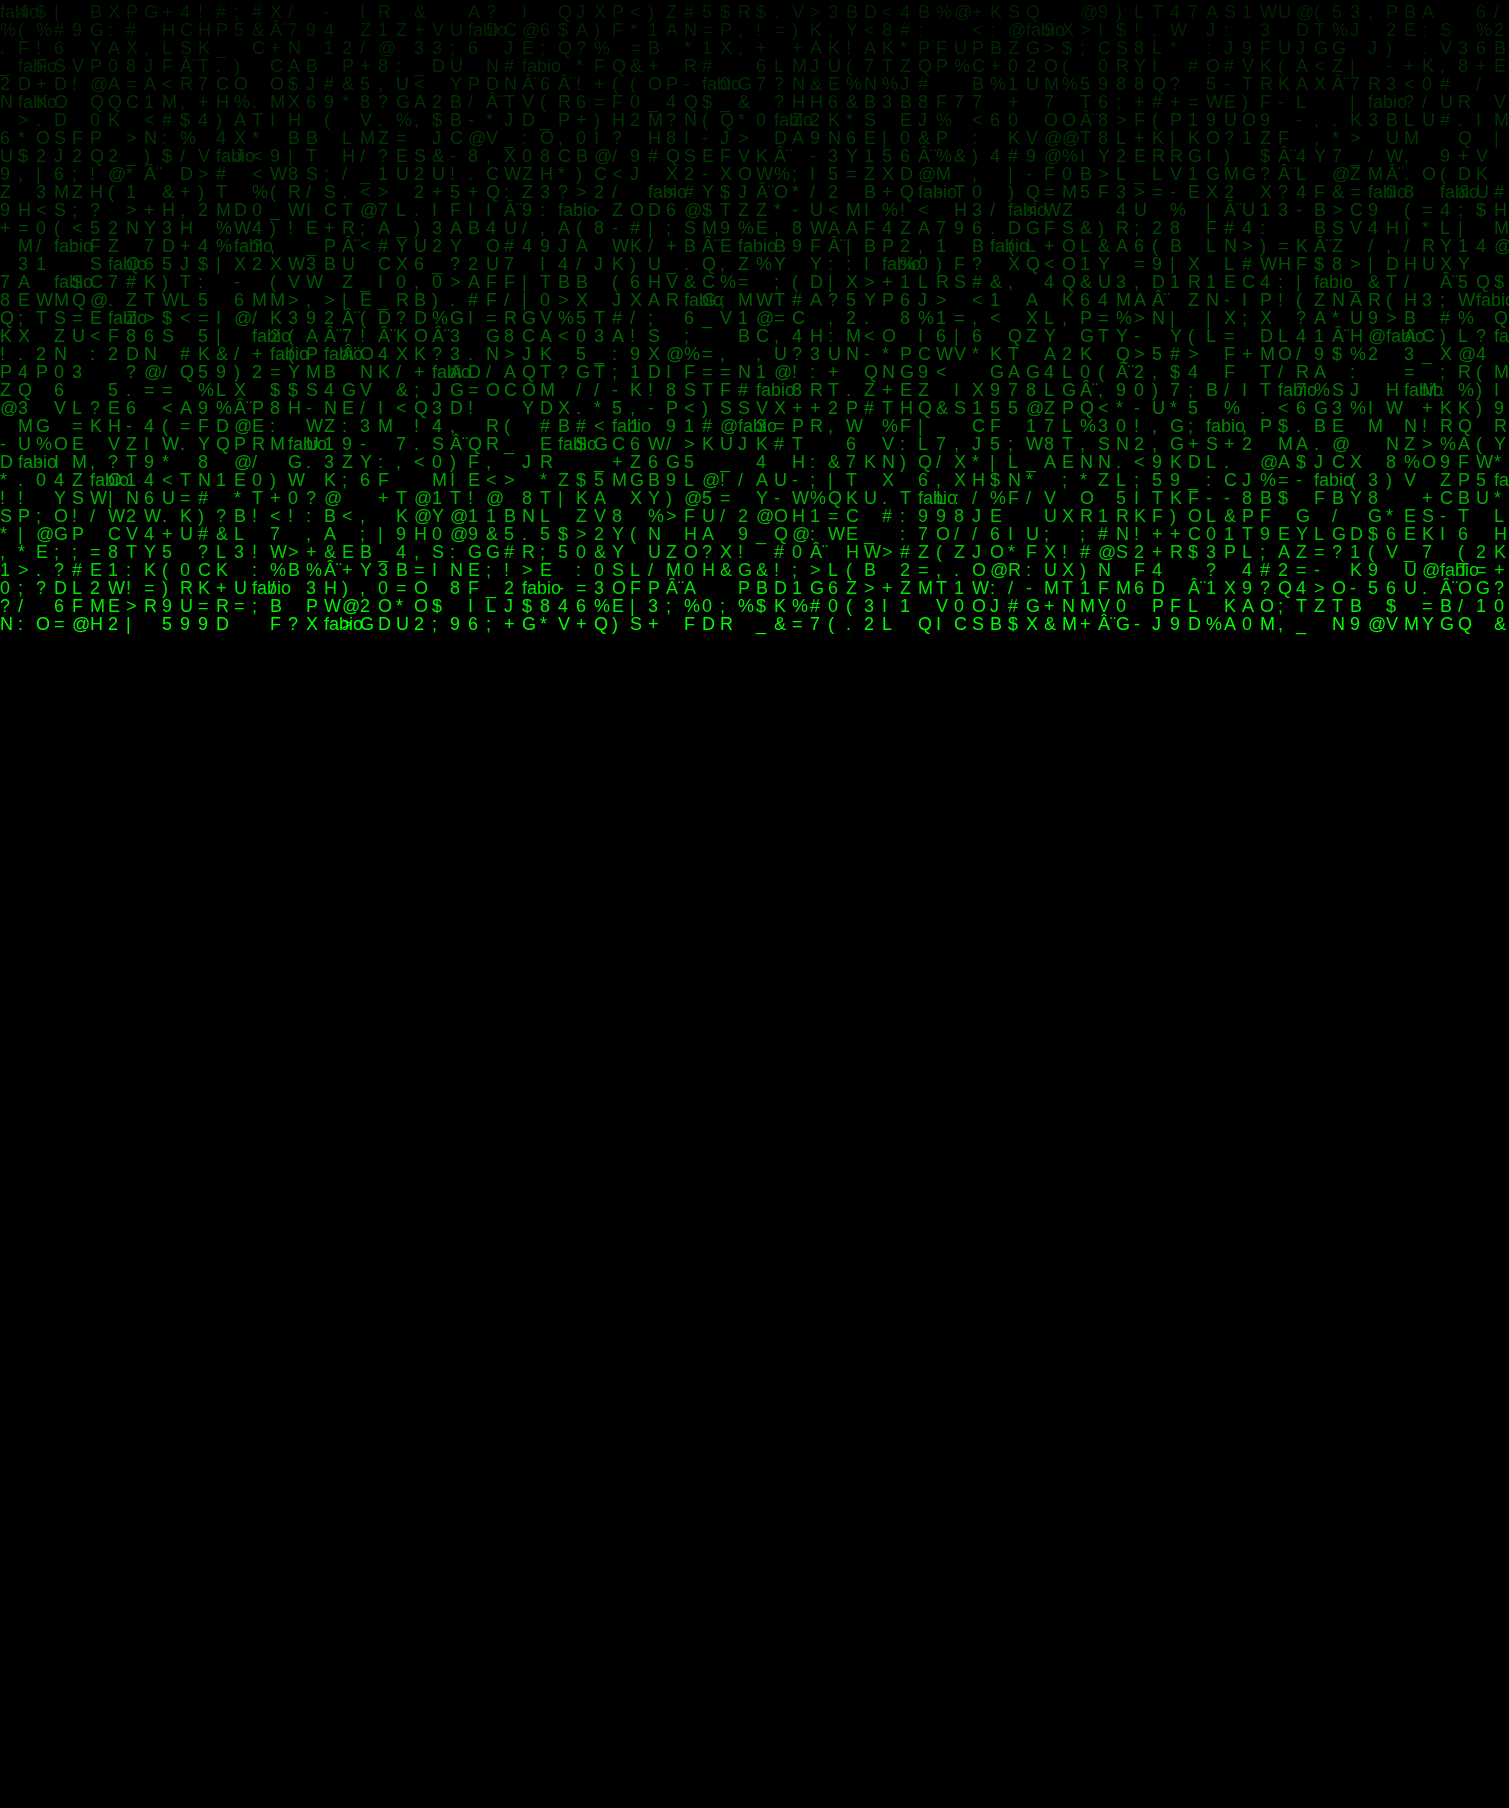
<svg xmlns="http://www.w3.org/2000/svg" xmlns:xlink="http://www.w3.org/1999/xlink" width="1509" height="1808" viewBox="0 0 1509 1808">
<rect width="100%" height="100%" fill="#000000"/>
<image xlink:href="image0.png" x="0" y="5" width="1509" height="630"/>
</svg>
